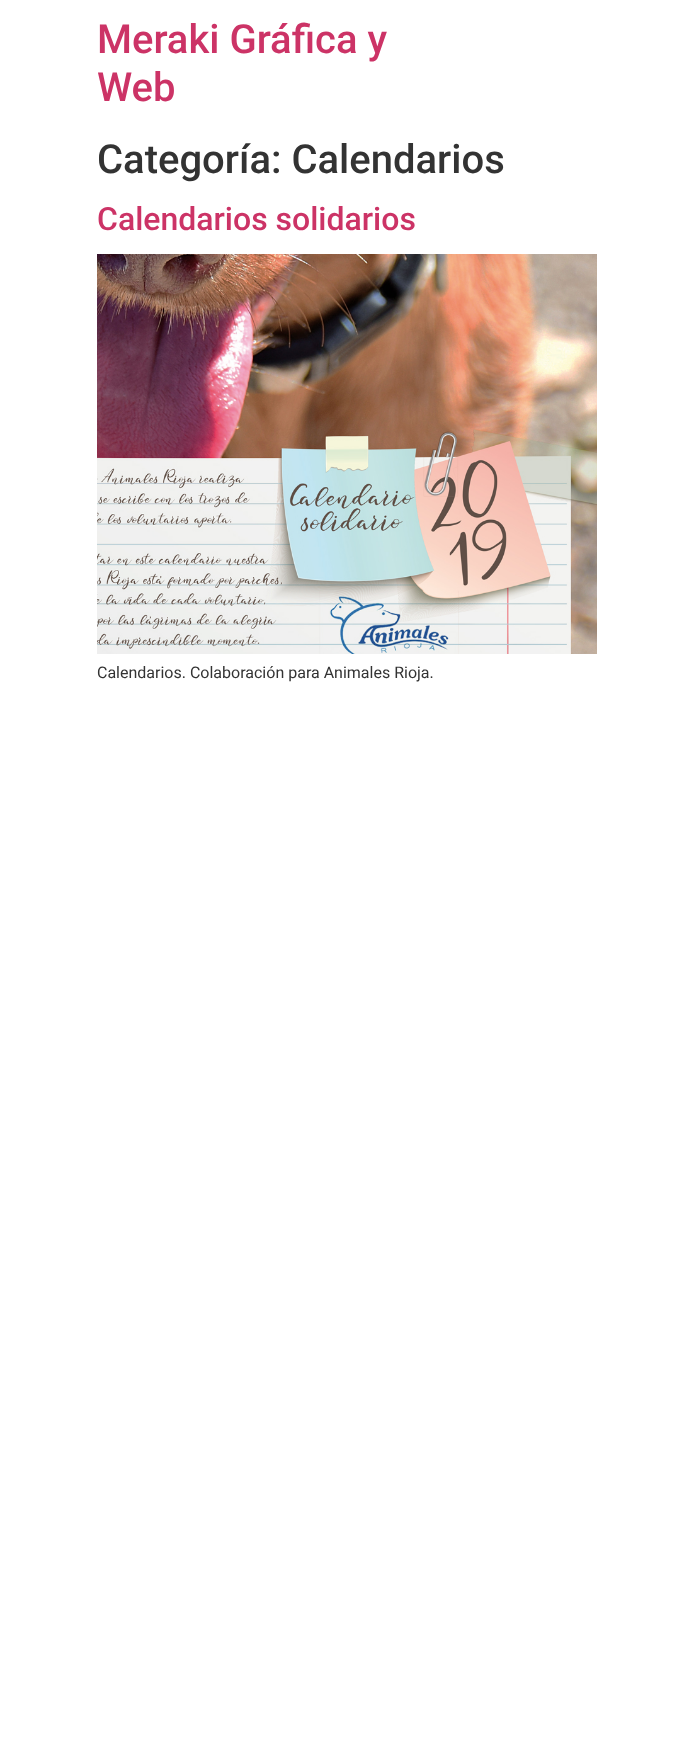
<svg xmlns="http://www.w3.org/2000/svg" xmlns:xlink="http://www.w3.org/1999/xlink" width="694" height="1749" viewBox="0 0 694 1749">
<style>
.cls-1{font:500 40px Roboto;fill:#cc3366}
.cls-2{font:500 40px Roboto;fill:#333333}
.cls-3{font:500 32px Roboto;fill:#cc3366}
.cls-4{font:16px Roboto;fill:#333333}
</style>
<rect width="100%" height="100%" fill="#ffffff"/>
<image xlink:href="image0.png" x="97" y="254" width="500" height="400"/>
<text class="cls-1"><tspan x="97" y="53">Meraki Gráfica y</tspan><tspan x="97" y="101">Web</tspan></text>
<text class="cls-2" x="97" y="173">Categoría: Calendarios</text>
<text class="cls-3" x="97" y="230">Calendarios solidarios</text>
<text class="cls-4" x="97" y="678">Calendarios. Colaboración para Animales Rioja.</text>
</svg>
